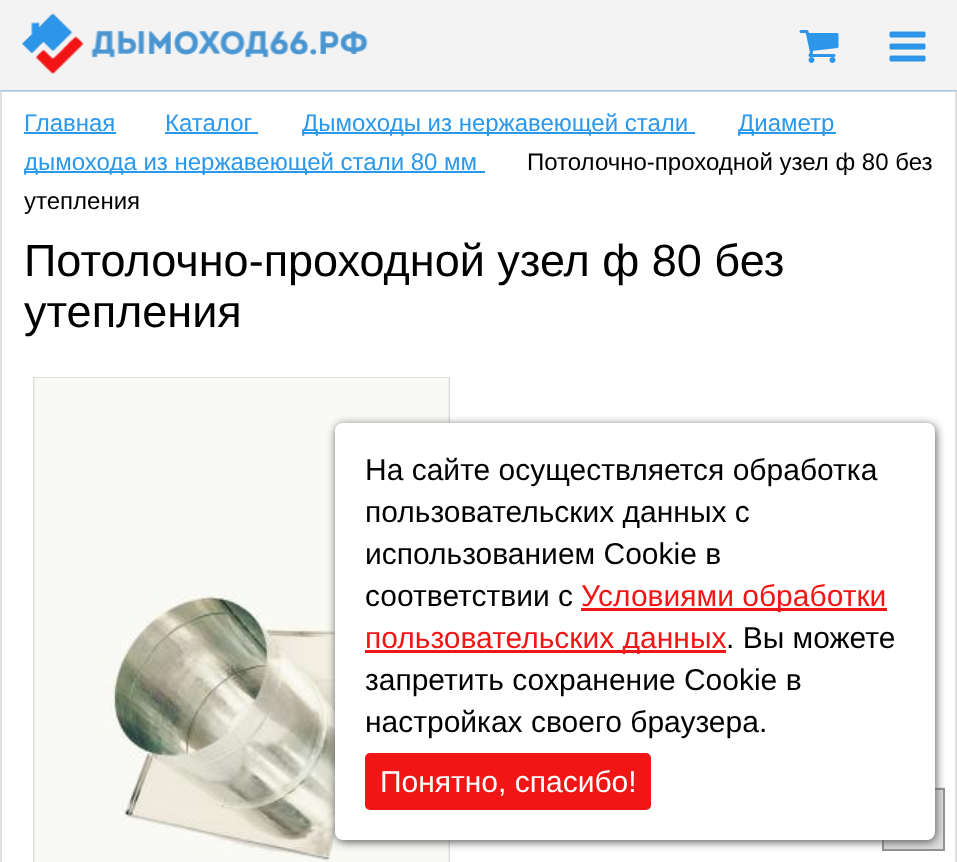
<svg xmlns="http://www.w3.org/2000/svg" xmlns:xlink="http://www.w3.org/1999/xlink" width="957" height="862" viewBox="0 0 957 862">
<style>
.cls-1{font:24px Liberation Sans;fill:#2a98ed}
.cls-2{font:24px Liberation Sans;fill:#000000}
.cls-3{font:45px Liberation Sans;fill:#000000}
.cls-4{font:30px Liberation Sans;fill:#000000}
.cls-5{font:30px Liberation Sans;fill:#f21515}
.cls-6{font:30px Liberation Sans;fill:#ffffff}
</style>
<rect width="100%" height="100%" fill="#ffffff"/>
<rect fill="none" stroke="#dfdfdf" stroke-width="2" x="1" y="91" width="955" height="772"/>
<rect fill="#2d96e8" filter="blur(1px)" x="0" y="0" width="957" height="90"/>
<rect fill="#f3f3f3" x="0" y="0" width="957" height="90"/>
<image xlink:href="image0.png" x="22" y="13" width="346" height="61"/>
<image xlink:href="image1.png" x="799" y="30" width="40" height="33"/>
<image xlink:href="image2.png" x="889" y="31" width="37" height="31"/>
<rect fill="#2a98ed" x="24" y="132" width="92" height="2"/>
<rect fill="#2a98ed" x="165" y="132" width="93" height="2"/>
<rect fill="#2a98ed" x="302" y="132" width="393" height="2"/>
<rect fill="#2a98ed" x="738" y="132" width="98" height="2"/>
<rect fill="#2a98ed" x="24" y="171" width="461" height="2"/>
<rect fill="none" stroke="#dedede" stroke-width="2" x="34" y="378" width="415" height="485"/>
<image xlink:href="image3.png" x="34" y="378" width="415" height="484"/>
<image xlink:href="image4.png" x="884" y="787" width="61" height="62"/>
<rect fill="none" stroke="#949494" stroke-width="2" x="883" y="789" width="61" height="61"/>
<rect fill="#585858" filter="blur(5px)" x="336" y="425" width="600" height="417" rx="8"/>
<rect fill="#ffffff" x="335" y="423" width="600" height="417" rx="8"/>
<rect fill="#f21515" x="581" y="608" width="306" height="3"/>
<rect fill="#f21515" x="365" y="650" width="361" height="3"/>
<rect fill="#f21515" x="365" y="753" width="286" height="57" rx="5"/>
<text class="cls-1" x="24" y="131">Главная</text>
<text class="cls-1" x="165" y="131">Каталог</text>
<text class="cls-1" x="302" y="131">Дымоходы из нержавеющей стали</text>
<text class="cls-1" x="738" y="131">Диаметр</text>
<text class="cls-1" x="24" y="170">дымохода из нержавеющей стали 80 мм</text>
<text class="cls-2" x="527" y="170">Потолочно-проходной узел ф 80 без</text>
<text class="cls-2" x="24" y="209">утепления</text>
<text class="cls-3"><tspan x="24" y="276">Потолочно-проходной узел ф 80 без</tspan><tspan x="24" y="327">утепления</tspan></text>
<text class="cls-4"><tspan x="365" y="480">На сайте осуществляется обработка</tspan><tspan x="365" y="522">пользовательских данных с</tspan><tspan x="365" y="564">использованием Cookie в</tspan><tspan x="365" y="606">соответствии с</tspan></text>
<text class="cls-5" x="581" y="606">Условиями обработки</text>
<text class="cls-5" x="365" y="648">пользовательских данных</text>
<text class="cls-4" x="726" y="648">. Вы можете</text>
<text class="cls-4"><tspan x="365" y="690">запретить сохранение Cookie в</tspan><tspan x="365" y="732">настройках своего браузера.</tspan></text>
<text class="cls-6" x="380" y="792">Понятно, спасибо!</text>
</svg>
